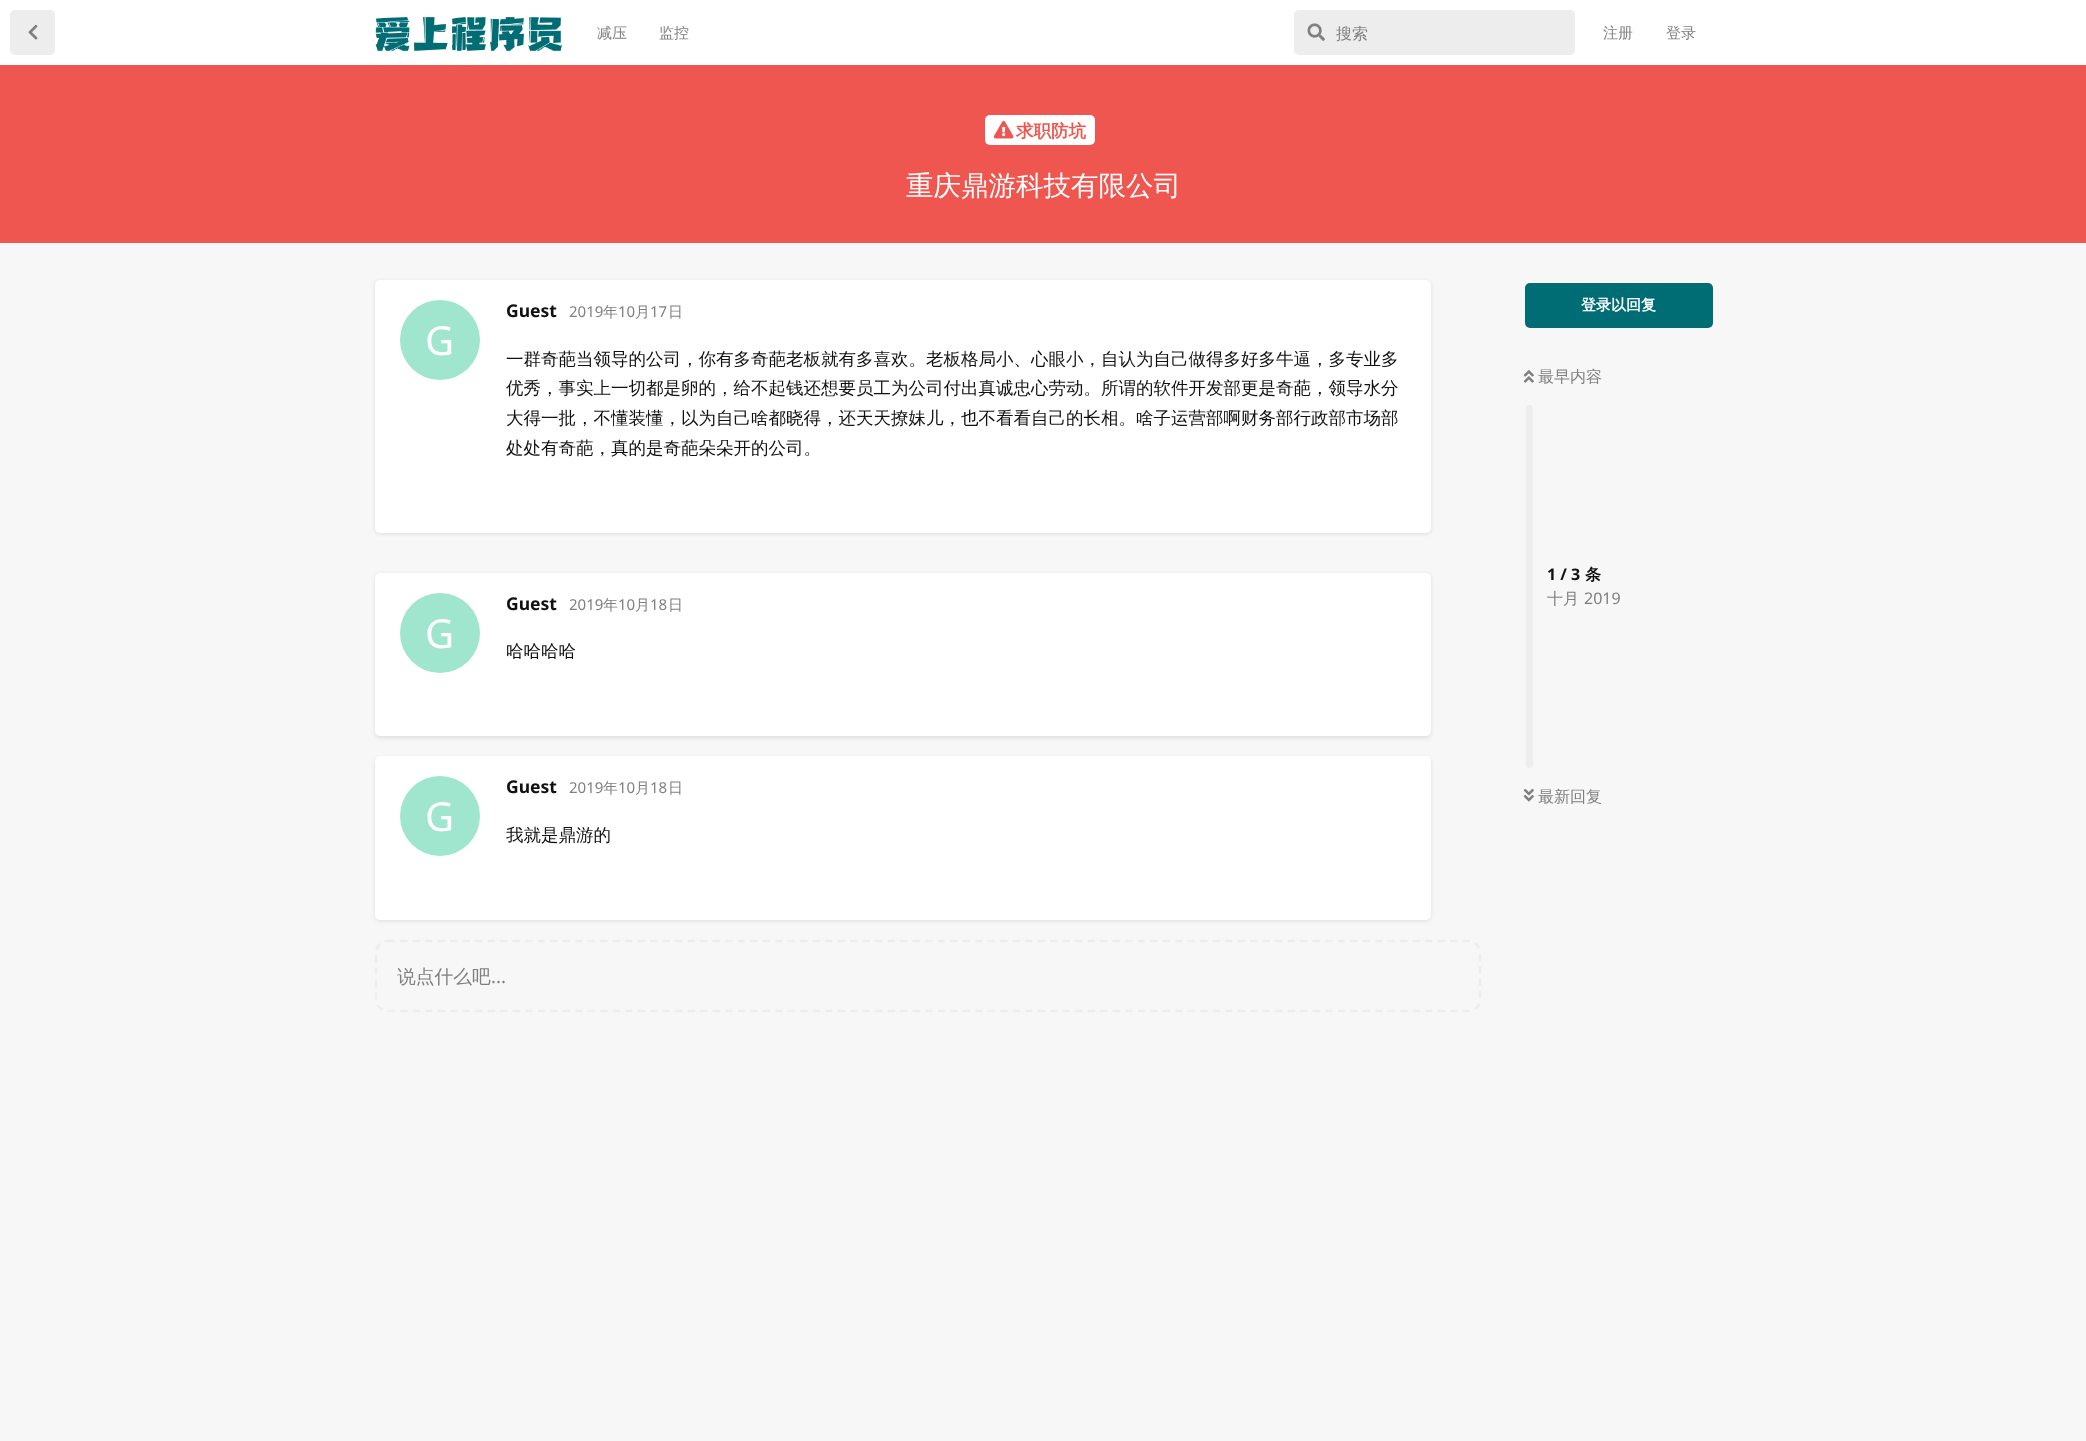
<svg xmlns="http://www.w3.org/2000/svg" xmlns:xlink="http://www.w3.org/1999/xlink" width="2086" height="1441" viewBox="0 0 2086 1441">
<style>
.cls-1{font:500 15px WenQuanYi Zen Hei;fill:#808080}
.cls-2{font:500 16px WenQuanYi Zen Hei;fill:#808080}
.cls-3{font:bold 17.5px WenQuanYi Zen Hei;fill:#ef564f}
.cls-4{font:500 27.5px WenQuanYi Zen Hei;fill:#ffffff}
.cls-5{font:bold 17.5px Noto Sans;fill:#111111}
.cls-6{font:40px Noto Sans;fill:#ffffff}
.cls-7{font:15px Noto Sans;fill:#808080}
.cls-8{font:500 17.5px WenQuanYi Zen Hei;fill:#111111}
.cls-9{font:500 18.75px WenQuanYi Zen Hei;fill:#808080}
.cls-10{font:18.75px Noto Sans;fill:#808080}
.cls-11{font:bold 15px WenQuanYi Zen Hei;fill:#ffffff}
.cls-12{font:bold 16px Noto Sans;fill:#111111}
.cls-13{font:bold 16px WenQuanYi Zen Hei;fill:#111111}
.cls-14{font:16px Noto Sans;fill:#808080}
</style>
<rect width="100%" height="100%" fill="#f7f7f7"/>
<rect fill="#ffffff" x="0" y="0" width="2086" height="65"/>
<rect fill="#ededed" x="10" y="10" width="45" height="45" rx="5"/>
<image xlink:href="image0.png" x="28" y="24" width="10" height="16"/>
<image xlink:href="image1.png" x="375" y="17" width="187" height="35"/>
<rect fill="#ededed" x="1294" y="10" width="281" height="45" rx="5"/>
<image xlink:href="image2.png" x="1307" y="23" width="18" height="18"/>
<rect fill="#ef564f" x="0" y="65" width="2086" height="178"/>
<rect fill="#ffffff" x="985" y="115" width="110" height="30" rx="5"/>
<image xlink:href="image3.png" x="993" y="121" width="21" height="18"/>
<rect fill="#000000" fill-opacity="0.1" filter="blur(2px)" x="375" y="281" width="1056" height="253" rx="5"/>
<rect fill="#ffffff" x="375" y="280" width="1056" height="253" rx="5"/>
<circle fill="#a0e5ce" cx="440" cy="340" r="40"/>
<rect fill="#000000" fill-opacity="0.1" filter="blur(2px)" x="375" y="574" width="1056" height="164" rx="5"/>
<rect fill="#ffffff" x="375" y="573" width="1056" height="163" rx="5"/>
<circle fill="#a0e5ce" cx="440" cy="633" r="40"/>
<rect fill="#000000" fill-opacity="0.1" filter="blur(2px)" x="375" y="758" width="1056" height="163" rx="5"/>
<rect fill="#ffffff" x="375" y="756" width="1056" height="164" rx="5"/>
<circle fill="#a0e5ce" cx="440" cy="816" r="40"/>
<path fill="none" stroke="#ededed" stroke-width="2.5" stroke-dasharray="7.5 5" d="M387.5 941H1469C1475 941 1480 946.5 1480 952.5V1000C1480 1006 1475 1011 1469 1011H387.5C381.5 1011 376 1006 376 1000V952.5C376 946.5 381.5 941 387.5 941Z"/>
<rect fill="#006d75" x="1525" y="283" width="188" height="45" rx="5"/>
<image xlink:href="image4.png" x="1523" y="370" width="11" height="13"/>
<rect fill="#ededed" x="1526" y="405" width="7" height="363" rx="3.5"/>
<image xlink:href="image5.png" x="1523" y="788" width="11" height="14"/>
<text class="cls-1" x="597" y="38">减压</text>
<text class="cls-1" x="659" y="38">监控</text>
<text class="cls-2" x="1336" y="39">搜索</text>
<text class="cls-1" x="1603" y="38">注册</text>
<text class="cls-1" x="1666" y="38">登录</text>
<text class="cls-3" x="1016" y="137">求职防坑</text>
<text class="cls-4" x="906" y="195">重庆鼎游科技有限公司</text>
<text class="cls-5" x="506" y="317">Guest</text>
<text class="cls-6" x="425" y="355">G</text>
<text class="cls-7" x="569" y="317">2019</text>
<text class="cls-1" x="603" y="317">年</text>
<text class="cls-7" x="618" y="317">10</text>
<text class="cls-1" x="635" y="317">月</text>
<text class="cls-7" x="650" y="317">17</text>
<text class="cls-1" x="668" y="317">日</text>
<text class="cls-8"><tspan x="506" y="365">一群奇葩当领导的公司，你有多奇葩老板就有多喜欢。老板格局小、心眼小，自认为自己做得多好多牛逼，多专业多</tspan><tspan x="506" y="394">优秀，事实上一切都是卵的，给不起钱还想要员工为公司付出真诚忠心劳动。所谓的软件开发部更是奇葩，领导水分</tspan><tspan x="506" y="424">大得一批，不懂装懂，以为自己啥都晓得，还天天撩妹儿，也不看看自己的长相。啥子运营部啊财务部行政部市场部</tspan><tspan x="506" y="454">处处有奇葩，真的是奇葩朵朵开的公司。</tspan></text>
<text class="cls-5" x="506" y="610">Guest</text>
<text class="cls-6" x="425" y="648">G</text>
<text class="cls-7" x="569" y="610">2019</text>
<text class="cls-1" x="603" y="610">年</text>
<text class="cls-7" x="618" y="610">10</text>
<text class="cls-1" x="635" y="610">月</text>
<text class="cls-7" x="650" y="610">18</text>
<text class="cls-1" x="668" y="610">日</text>
<text class="cls-8" x="506" y="657">哈哈哈哈</text>
<text class="cls-5" x="506" y="793">Guest</text>
<text class="cls-6" x="425" y="831">G</text>
<text class="cls-7" x="569" y="793">2019</text>
<text class="cls-1" x="603" y="793">年</text>
<text class="cls-7" x="618" y="793">10</text>
<text class="cls-1" x="635" y="793">月</text>
<text class="cls-7" x="650" y="793">18</text>
<text class="cls-1" x="668" y="793">日</text>
<text class="cls-8" x="506" y="841">我就是鼎游的</text>
<text class="cls-9" x="397" y="983">说点什么吧</text>
<text class="cls-10" x="491" y="983">...</text>
<text class="cls-11" x="1581" y="310">登录以回复</text>
<text class="cls-2" x="1538" y="382">最早内容</text>
<text class="cls-12" x="1547" y="580">1 / 3</text>
<text class="cls-13" x="1585" y="580">条</text>
<text class="cls-2" x="1547" y="604">十月</text>
<text class="cls-14" x="1584" y="604">2019</text>
<text class="cls-2" x="1538" y="802">最新回复</text>
</svg>
